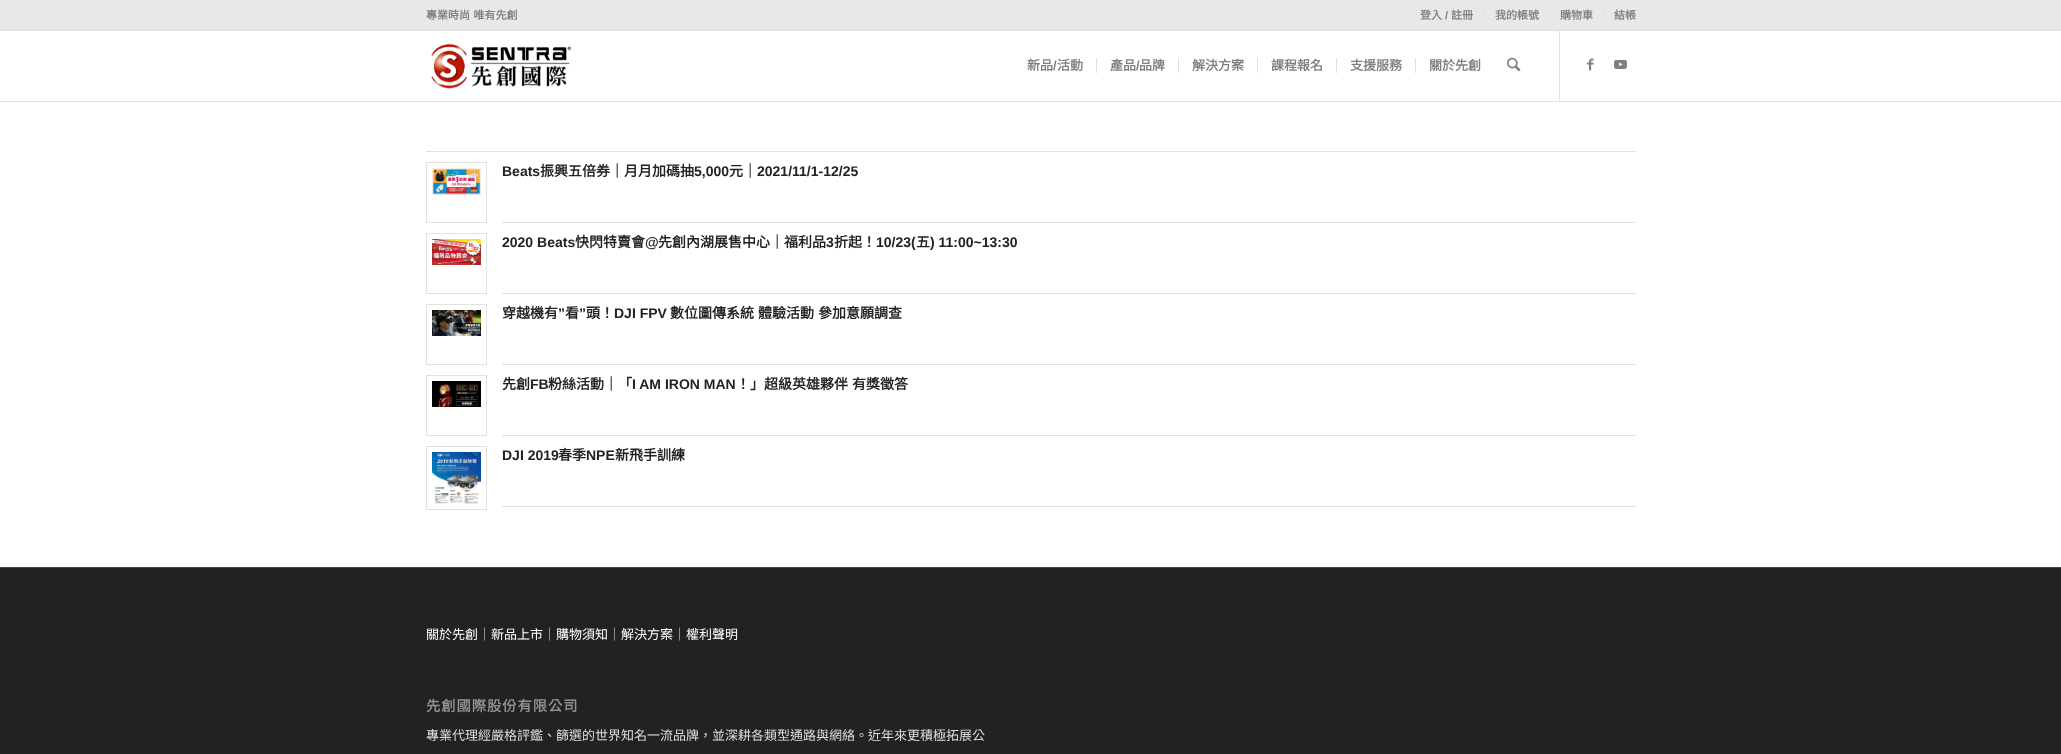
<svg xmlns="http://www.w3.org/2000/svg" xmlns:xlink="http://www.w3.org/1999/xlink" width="2061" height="754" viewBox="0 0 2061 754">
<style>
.cls-1{font:bold 11px Noto Sans CJK TC;fill:#808080}
.cls-2{font:bold 11px Liberation Sans;fill:#808080}
.cls-3{font:bold 13px Noto Sans CJK TC;fill:#808080}
.cls-4{font:bold 13px Liberation Sans;fill:#808080}
.cls-5{font:bold 14px Liberation Sans;fill:#222222}
.cls-6{font:bold 14px Noto Sans CJK TC;fill:#222222}
.cls-7{font:13px Noto Sans CJK TC;fill:#ffffff}
.cls-8{font:13px Noto Sans CJK TC;fill:#dddddd}
.cls-9{font:bold 14.25px Noto Sans CJK TC;letter-spacing:1px;fill:#919191}
</style>
<rect width="100%" height="100%" fill="#ffffff"/>
<rect fill="#e8e8e8" x="0" y="0" width="2061" height="30"/>
<rect fill="#e1e1e1" x="0" y="30" width="2061" height="1"/>
<rect fill="#e1e1e1" x="1484" y="10" width="1" height="10"/>
<rect fill="#e1e1e1" x="1549" y="10" width="1" height="10"/>
<rect fill="#e1e1e1" x="1603" y="10" width="1" height="10"/>
<rect fill="#e1e1e1" x="0" y="101" width="2061" height="1"/>
<image xlink:href="image0.png" x="431" y="43" width="141" height="46"/>
<rect fill="#e1e1e1" x="1559" y="31" width="1" height="70"/>
<rect fill="#e1e1e1" x="1096" y="58" width="1" height="15"/>
<rect fill="#e1e1e1" x="1178" y="58" width="1" height="15"/>
<rect fill="#e1e1e1" x="1257" y="58" width="1" height="15"/>
<rect fill="#e1e1e1" x="1336" y="58" width="1" height="15"/>
<rect fill="#e1e1e1" x="1415" y="58" width="1" height="15"/>
<image xlink:href="image1.png" x="1507" y="57" width="14" height="15"/>
<image xlink:href="image2.png" x="1587" y="58" width="7" height="13"/>
<image xlink:href="image3.png" x="1614" y="59" width="13" height="10"/>
<rect fill="#e1e1e1" x="426" y="151" width="1210" height="1"/>
<rect fill="none" stroke="#e1e1e1" x="426.5" y="162.5" width="60" height="60"/>
<image xlink:href="image4.png" x="432" y="168" width="49" height="27"/>
<rect fill="#e1e1e1" x="502" y="222" width="1134" height="1"/>
<rect fill="none" stroke="#e1e1e1" x="426.5" y="233.5" width="60" height="60"/>
<image xlink:href="image5.png" x="432" y="239" width="49" height="26"/>
<rect fill="#e1e1e1" x="502" y="293" width="1134" height="1"/>
<rect fill="none" stroke="#e1e1e1" x="426.5" y="304.5" width="60" height="60"/>
<image xlink:href="image6.png" x="432" y="310" width="49" height="26"/>
<rect fill="#e1e1e1" x="502" y="364" width="1134" height="1"/>
<rect fill="none" stroke="#e1e1e1" x="426.5" y="375.5" width="60" height="60"/>
<image xlink:href="image7.png" x="432" y="381" width="49" height="26"/>
<rect fill="#e1e1e1" x="502" y="435" width="1134" height="1"/>
<rect fill="none" stroke="#e1e1e1" x="426.5" y="446.5" width="60" height="63"/>
<image xlink:href="image8.png" x="432" y="452" width="49" height="52"/>
<rect fill="#e1e1e1" x="502" y="506" width="1134" height="1"/>
<rect fill="#222222" x="0" y="568" width="2061" height="186"/>
<rect fill="#444444" x="0" y="567" width="2061" height="1"/>
<text class="cls-1" x="426" y="19" word-spacing="1">專業時尚 唯有先創</text>
<text class="cls-1" x="1420" y="19">登入</text>
<text class="cls-2" x="1445" y="19">/</text>
<text class="cls-1" x="1451" y="19">註冊</text>
<text class="cls-1" x="1495" y="19">我的帳號</text>
<text class="cls-1" x="1560" y="19">購物車</text>
<text class="cls-1" x="1614" y="19">結帳</text>
<text class="cls-3" x="1027" y="70">新品</text>
<text class="cls-4" x="1053" y="70">/</text>
<text class="cls-3" x="1057" y="70">活動</text>
<text class="cls-3" x="1110" y="70">產品</text>
<text class="cls-4" x="1136" y="70">/</text>
<text class="cls-3" x="1139" y="70">品牌</text>
<text class="cls-3" x="1192" y="70">解決方案</text>
<text class="cls-3" x="1271" y="70">課程報名</text>
<text class="cls-3" x="1350" y="70">支援服務</text>
<text class="cls-3" x="1429" y="70">關於先創</text>
<text class="cls-5" x="502" y="176">Beats</text>
<text class="cls-6" x="540" y="176">振興五倍券｜月月加碼抽</text>
<text class="cls-5" x="694" y="176">5,000</text>
<text class="cls-6" x="729" y="176">元｜</text>
<text class="cls-5" x="757" y="176">2021/11/1-12/25</text>
<text class="cls-5" x="502" y="247">2020 Beats</text>
<text class="cls-6" x="575" y="247">快閃特賣會</text>
<text class="cls-5" x="645" y="247">@</text>
<text class="cls-6" x="658" y="247">先創內湖展售中心｜福利品</text>
<text class="cls-5" x="826" y="247">3</text>
<text class="cls-6" x="834" y="247">折起！</text>
<text class="cls-5" x="876" y="247">10/23(</text>
<text class="cls-6" x="916" y="247">五</text>
<text class="cls-5" x="930" y="247">) 11:00~13:30</text>
<text class="cls-6" x="502" y="318">穿越機有</text>
<text class="cls-5" x="558" y="318">”</text>
<text class="cls-6" x="565" y="318">看</text>
<text class="cls-5" x="579" y="318">”</text>
<text class="cls-6" x="586" y="318">頭！</text>
<text class="cls-5" x="614" y="318">DJI FPV</text>
<text class="cls-6" x="670" y="318">數位圖傳系統</text>
<text class="cls-6" x="758" y="318">體驗活動</text>
<text class="cls-6" x="818" y="318">參加意願調查</text>
<text class="cls-6" x="502" y="389">先創</text>
<text class="cls-5" x="530" y="389">FB</text>
<text class="cls-6" x="548" y="389">粉絲活動｜「</text>
<text class="cls-5" x="632" y="389">I AM IRON MAN</text>
<text class="cls-6" x="736" y="389">！」超級英雄夥伴</text>
<text class="cls-6" x="852" y="389">有獎徵答</text>
<text class="cls-5" x="502" y="460">DJI 2019</text>
<text class="cls-6" x="558" y="460">春季</text>
<text class="cls-5" x="586" y="460">NPE</text>
<text class="cls-6" x="615" y="460">新飛手訓練</text>
<text class="cls-7" x="426" y="639">關於先創</text>
<text class="cls-8" x="478" y="639">｜</text>
<text class="cls-7" x="491" y="639">新品上市</text>
<text class="cls-8" x="543" y="639">｜</text>
<text class="cls-7" x="556" y="639">購物須知</text>
<text class="cls-8" x="608" y="639">｜</text>
<text class="cls-7" x="621" y="639">解決方案</text>
<text class="cls-8" x="673" y="639">｜</text>
<text class="cls-7" x="686" y="639">權利聲明</text>
<text class="cls-9" x="426" y="711">先創國際股份有限公司</text>
<text class="cls-8" x="426" y="740">專業代理經嚴格評鑑、篩選的世界知名一流品牌，並深耕各類型通路與網絡。近年來更積極拓展公</text>
</svg>
